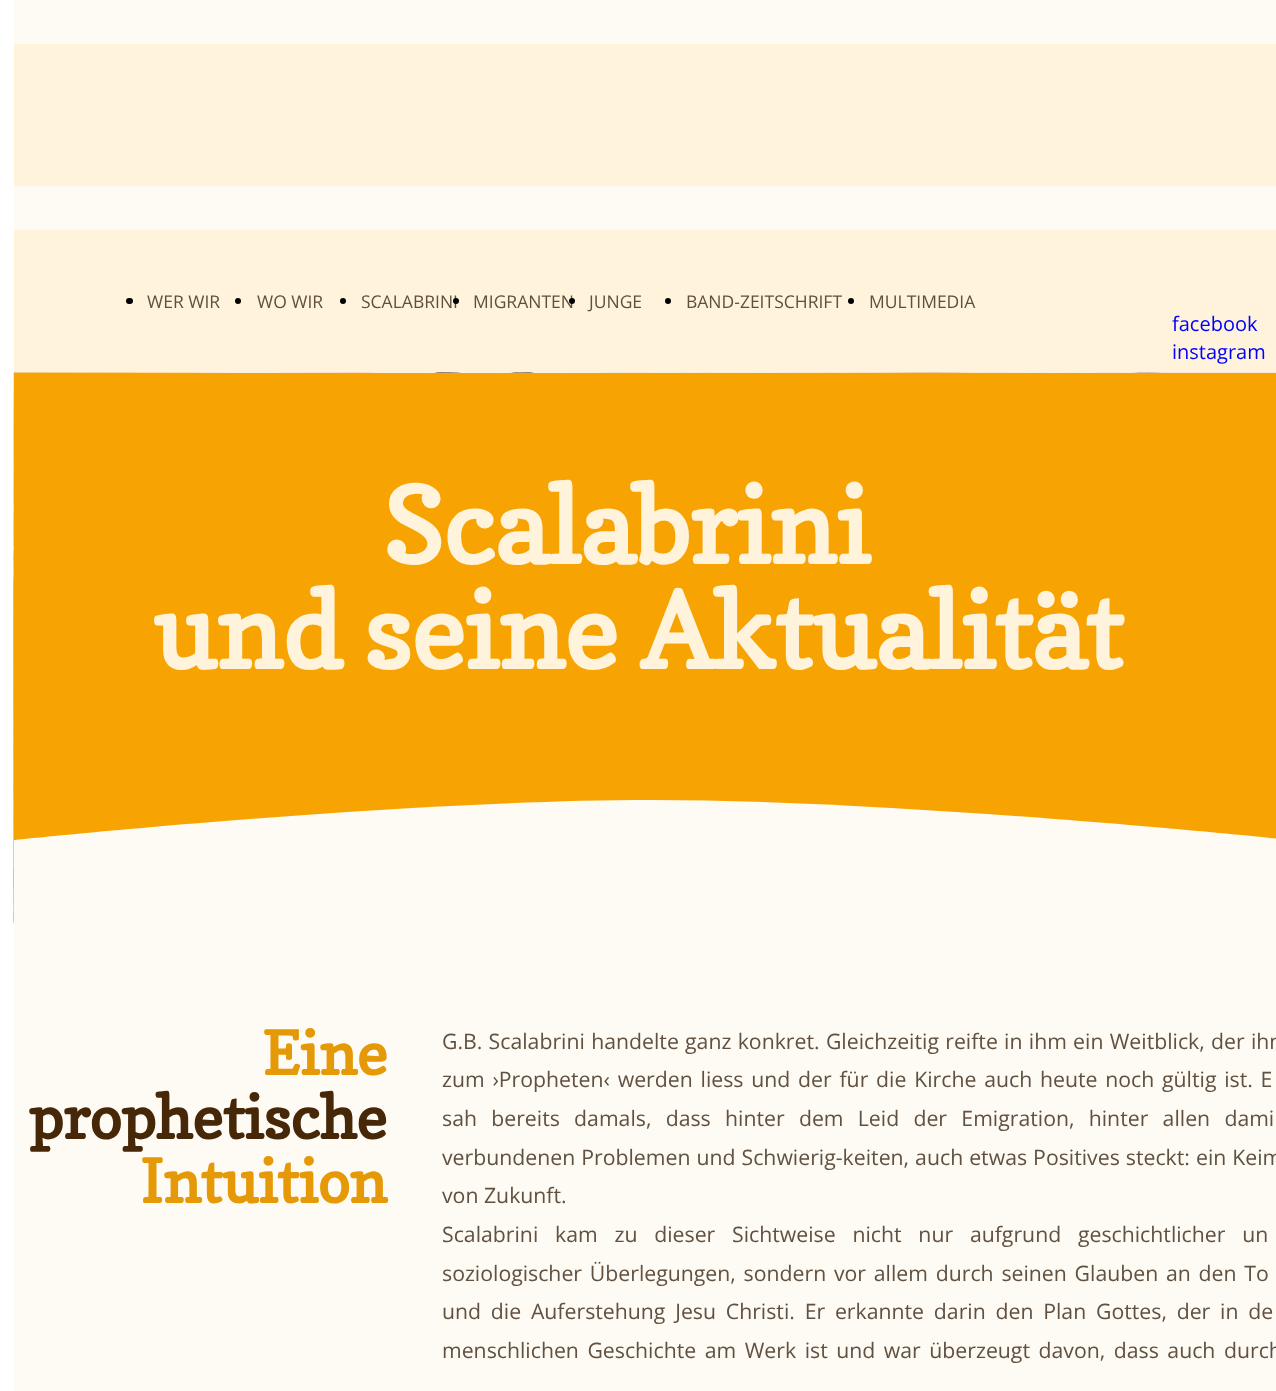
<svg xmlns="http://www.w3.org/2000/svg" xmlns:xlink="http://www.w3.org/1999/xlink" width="1276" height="1391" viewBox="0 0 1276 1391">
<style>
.cls-1{font:17.5px Open Sans;fill:#604f3a}
.cls-2{font:20px Open Sans;fill:#0000ff}
.cls-3{font:bold 105px Copse;fill:#fff3dc}
.cls-4{font:bold 60px Copse;fill:#e59906}
.cls-5{font:bold 60px Copse;fill:#462708}
.cls-6{font:21.25px Open Sans;fill:#605140}
</style>
<rect width="100%" height="100%" fill="#ffffff"/>
<rect fill="#fefaf4" x="14" y="0" width="1262" height="44"/>
<rect fill="#fff3dc" x="14" y="44" width="1262" height="142"/>
<rect fill="#fefaf4" x="14" y="186" width="1262" height="44"/>
<rect fill="#fff3dc" x="14" y="230" width="1262" height="143"/>
<rect fill="#000000" x="126" y="298" width="7" height="6" rx="3"/>
<circle fill="#000000" cx="238" cy="301" r="3"/>
<circle fill="#000000" cx="343" cy="301" r="3"/>
<circle fill="#000000" cx="668" cy="301" r="3"/>
<circle fill="#000000" cx="851" cy="301" r="3"/>
<image xlink:href="image0.png" x="13" y="372" width="1263" height="551"/>
<rect fill="#f7a301" x="14" y="373" width="1262" height="467"/>
<path fill="#fefaf4" d="M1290 925H14V840C14 840 395 800 652 800C909 800 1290 840 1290 840Z"/>
<rect fill="#fefaf4" x="14" y="925" width="1262" height="466"/>
<text class="cls-1" x="147" y="308">WER WIR</text>
<text class="cls-1" x="257" y="308">WO WIR</text>
<text class="cls-1" x="361" y="308">SCALABRINI</text>
<circle fill="#000000" cx="456" cy="301" r="3"/>
<text class="cls-1" x="473" y="308">MIGRANTEN</text>
<circle fill="#000000" cx="572" cy="301" r="3"/>
<text class="cls-1" x="589" y="308">JUNGE</text>
<text class="cls-1" x="686" y="308">BAND-ZEITSCHRIFT</text>
<text class="cls-1" x="869" y="308">MULTIMEDIA</text>
<text class="cls-2"><tspan x="1172" y="331">facebook</tspan><tspan x="1172" y="359">instagram</tspan></text>
<text class="cls-3" x="383" y="564">Scalabrini</text>
<text class="cls-3" x="153" y="669">und seine Aktualität</text>
<text class="cls-4" x="262" y="1075">Eine</text>
<text class="cls-5" x="29" y="1139">prophetische</text>
<text class="cls-4" x="140" y="1203">Intuition</text>
<text class="cls-6"><tspan x="442" y="1049" word-spacing="0.75">G.B. Scalabrini handelte ganz konkret. Gleichzeitig reifte in ihm ein Weitblick, der ihn</tspan><tspan x="442" y="1087" word-spacing="2.25">zum ›Propheten‹ werden liess und der für die Kirche auch heute noch gültig ist. E</tspan><tspan x="442" y="1126" word-spacing="8.75">sah bereits damals, dass hinter dem Leid der Emigration, hinter allen dami</tspan><tspan x="442" y="1165" word-spacing="0.5">verbundenen Problemen und Schwierig-keiten, auch etwas Positives steckt: ein Keim</tspan><tspan x="442" y="1203">von Zukunft.</tspan><tspan x="442" y="1242" word-spacing="11.25">Scalabrini kam zu dieser Sichtweise nicht nur aufgrund geschichtlicher un</tspan><tspan x="442" y="1281" word-spacing="2.25">soziologischer Überlegungen, sondern vor allem durch seinen Glauben an den To</tspan><tspan x="442" y="1319" word-spacing="4.25">und die Auferstehung Jesu Christi. Er erkannte darin den Plan Gottes, der in de</tspan><tspan x="442" y="1358" word-spacing="3">menschlichen Geschichte am Werk ist und war überzeugt davon, dass auch durch</tspan></text>
</svg>
